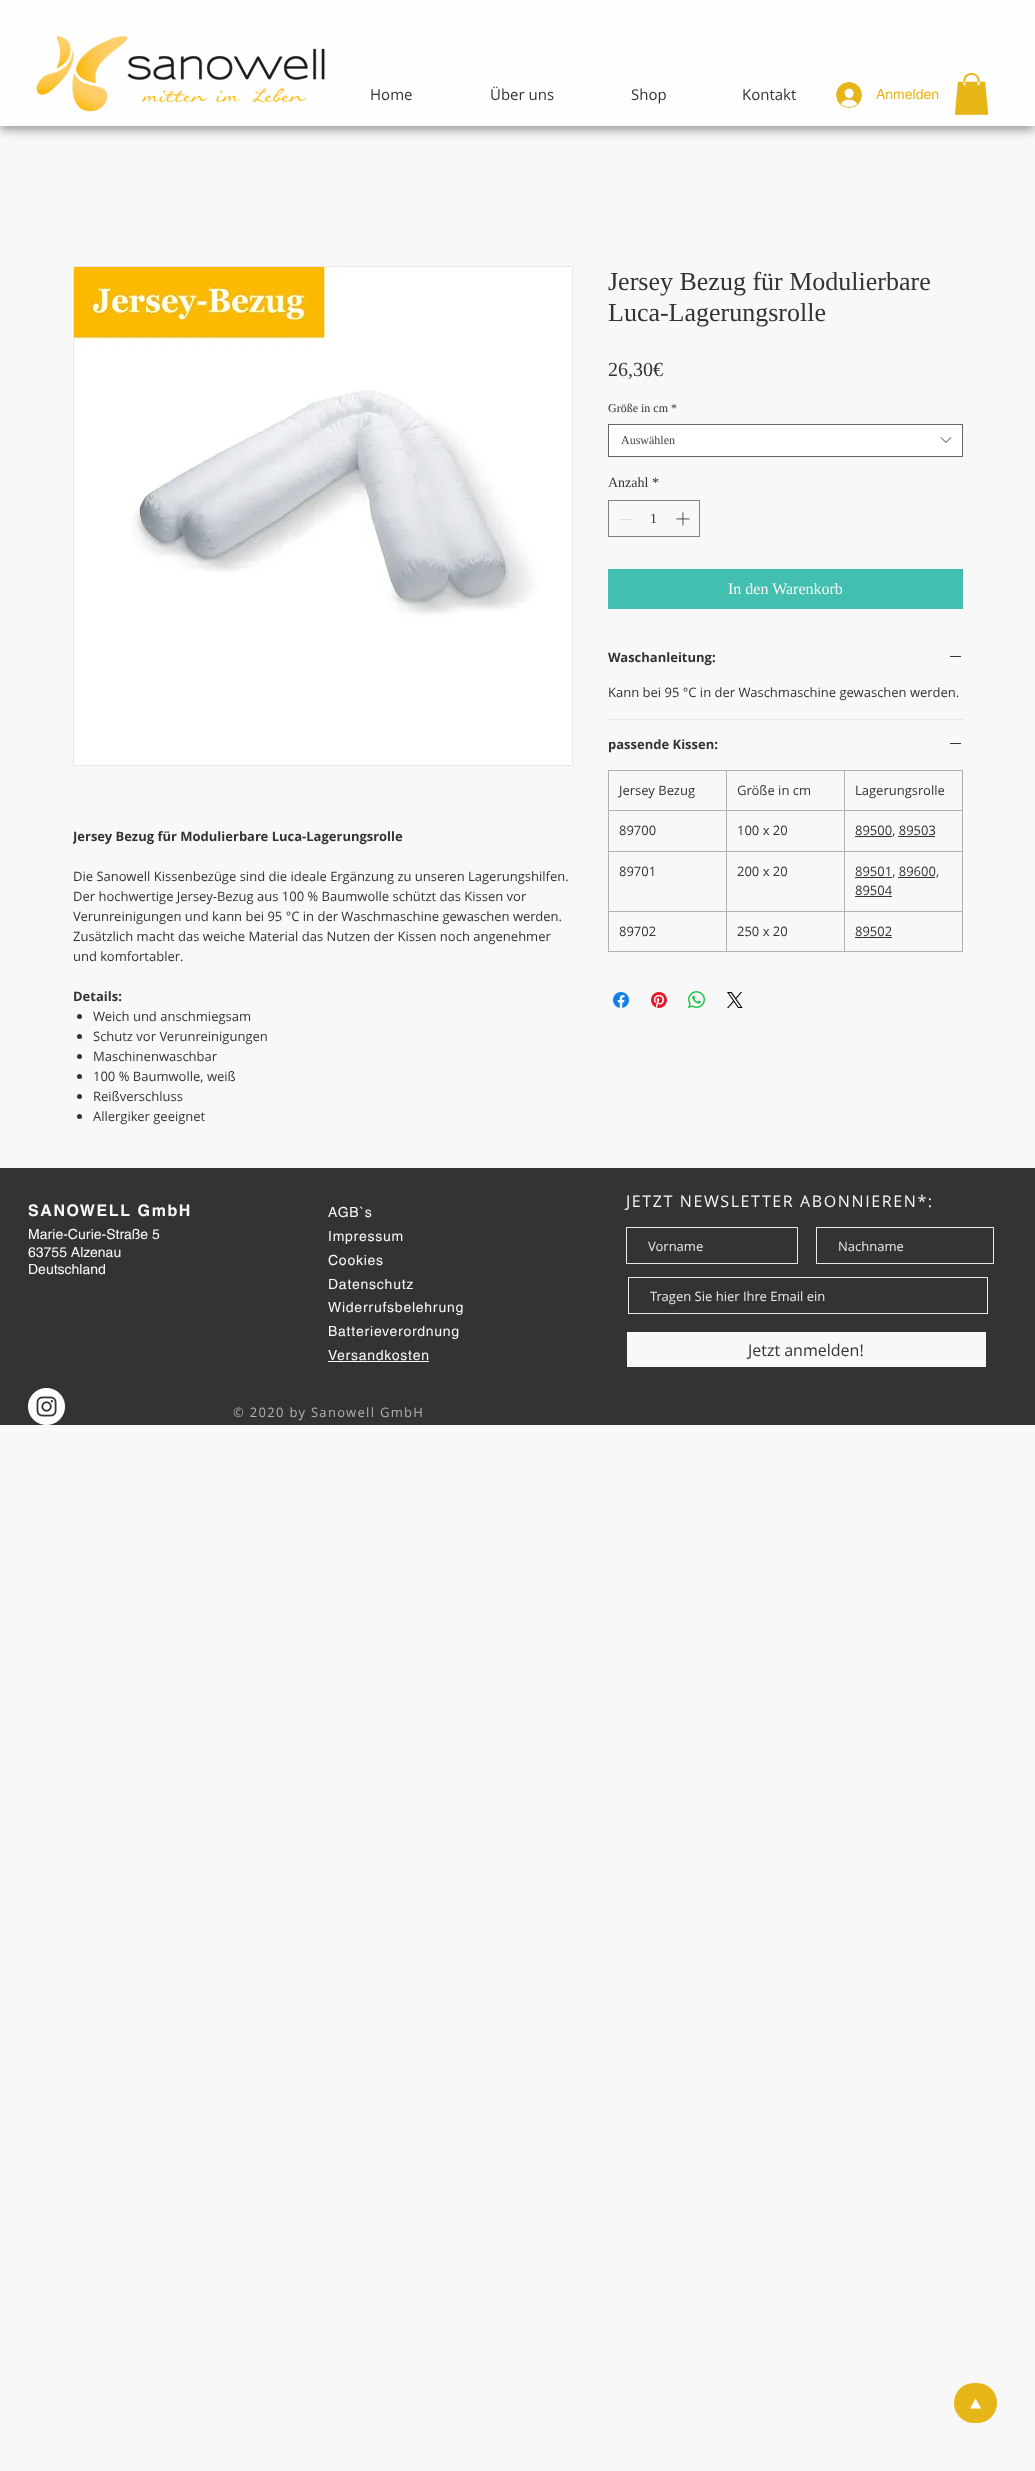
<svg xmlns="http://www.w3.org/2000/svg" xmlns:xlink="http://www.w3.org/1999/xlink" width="1035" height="2471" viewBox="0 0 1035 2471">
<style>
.cls-1{font:15px Open Sans;fill:#333333}
.cls-2{font:14px helvetica;fill:#e6b517}
.cls-3{font:26px Liberation Serif;fill:#333333}
.cls-4{font:20px Liberation Serif;fill:#333333}
.cls-5{font:12px Liberation Serif;fill:#333333}
.cls-6{font:12px Liberation Serif;fill:#444444}
.cls-7{font:14px Liberation Serif;fill:#333333}
.cls-8{font:16px Liberation Serif;fill:#f8f8f8}
.cls-9{font:bold 13px Open Sans;fill:#333333}
.cls-10{font:13px Open Sans;fill:#333333}
.cls-11{font:bold 16px helvetica;letter-spacing:1.6px;fill:#f8f8f8}
.cls-12{font:14px helvetica;fill:#f8f8f8}
.cls-13{font:14px helvetica;letter-spacing:0.75px;fill:#f8f8f8}
.cls-14{font:16px Open Sans;letter-spacing:1.6px;fill:#f8f8f8}
.cls-15{font:13px Open Sans;fill:#e8e8e8}
.cls-16{font:16px Open Sans;fill:#333333}
.cls-17{font:13px Open Sans;letter-spacing:1.3px;fill:#b2b1b1}
.cls-18{font:18px 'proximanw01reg';fill:#ffffff}
</style>
<defs>
<clipPath id="clip1"><rect x="73" y="826" width="500" height="300"/></clipPath>
</defs>
<rect width="100%" height="100%" fill="#f8f8f8"/>
<rect fill="#000000" fill-opacity="0.44" filter="blur(5.5px)" x="0" y="3" width="1035" height="126"/>
<rect fill="#fefefe" x="0" y="0" width="1035" height="126"/>
<image xlink:href="image0.png" x="36" y="35" width="289" height="77"/>
<image xlink:href="image1.png" x="836" y="82" width="26" height="26"/>
<image xlink:href="image2.png" x="954" y="73" width="35" height="42"/>
<rect fill="#ffffff" stroke="#666666" x="608.5" y="424.5" width="354" height="32"/>
<image xlink:href="image3.png" x="940" y="437" width="12" height="6"/>
<rect fill="none" stroke="#828282" x="608.5" y="500.5" width="91" height="36"/>
<rect fill="#e0e0e0" x="620" y="519" width="13" height="1"/>
<image xlink:href="image4.png" x="676" y="512" width="14" height="14"/>
<rect fill="#42bfb0" x="608" y="569" width="355" height="40"/>
<rect fill="#e8e8e8" x="608" y="719" width="355" height="1"/>
<rect fill="#333333" x="950" y="656" width="11" height="1"/>
<rect fill="#333333" x="950" y="743" width="11" height="1"/>
<rect fill="#b2b1b1" x="844" y="770" width="119" height="1"/>
<rect fill="#b2b1b1" x="844" y="810" width="119" height="1"/>
<rect fill="#b2b1b1" x="844" y="851" width="119" height="1"/>
<rect fill="#b2b1b1" x="844" y="911" width="119" height="1"/>
<rect fill="#b2b1b1" x="962" y="911" width="1" height="41"/>
<rect fill="#b2b1b1" x="844" y="951" width="119" height="1"/>
<rect fill="#b2b1b1" x="844" y="911" width="1" height="41"/>
<rect fill="#b2b1b1" x="726" y="911" width="119" height="1"/>
<rect fill="#b2b1b1" x="844" y="851" width="1" height="61"/>
<rect fill="#b2b1b1" x="726" y="851" width="119" height="1"/>
<rect fill="#b2b1b1" x="844" y="810" width="1" height="42"/>
<rect fill="#b2b1b1" x="726" y="810" width="119" height="1"/>
<rect fill="#b2b1b1" x="844" y="770" width="1" height="41"/>
<rect fill="#b2b1b1" x="726" y="770" width="119" height="1"/>
<rect fill="#b2b1b1" x="726" y="951" width="119" height="1"/>
<rect fill="#b2b1b1" x="726" y="911" width="1" height="41"/>
<rect fill="#b2b1b1" x="608" y="911" width="119" height="1"/>
<rect fill="#b2b1b1" x="726" y="851" width="1" height="61"/>
<rect fill="#b2b1b1" x="608" y="851" width="119" height="1"/>
<rect fill="#b2b1b1" x="726" y="810" width="1" height="42"/>
<rect fill="#b2b1b1" x="608" y="810" width="119" height="1"/>
<rect fill="#b2b1b1" x="726" y="770" width="1" height="41"/>
<rect fill="#b2b1b1" x="608" y="770" width="119" height="1"/>
<rect fill="#b2b1b1" x="608" y="951" width="119" height="1"/>
<rect fill="#b2b1b1" x="608" y="911" width="1" height="41"/>
<rect fill="#b2b1b1" x="608" y="851" width="1" height="61"/>
<rect fill="#b2b1b1" x="608" y="810" width="1" height="42"/>
<rect fill="#b2b1b1" x="608" y="770" width="1" height="41"/>
<rect fill="#b2b1b1" x="962" y="851" width="1" height="61"/>
<rect fill="#b2b1b1" x="962" y="810" width="1" height="42"/>
<rect fill="#b2b1b1" x="962" y="770" width="1" height="41"/>
<rect fill="#333333" x="855" y="836" width="37" height="1"/>
<rect fill="#333333" x="898" y="836" width="37" height="1"/>
<rect fill="#333333" x="855" y="877" width="37" height="1"/>
<rect fill="#333333" x="898" y="877" width="37" height="1"/>
<rect fill="#333333" x="855" y="896" width="37" height="1"/>
<rect fill="#333333" x="855" y="937" width="37" height="1"/>
<image xlink:href="image5.png" x="613" y="992" width="16" height="16"/>
<image xlink:href="image6.png" x="651" y="992" width="16" height="16"/>
<image xlink:href="image7.png" x="688" y="991" width="17" height="17"/>
<image xlink:href="image8.png" x="727" y="992" width="16" height="16"/>
<rect fill="none" stroke="#e8e8e8" x="73.5" y="266.5" width="499" height="499"/>
<image xlink:href="image9.png" x="74" y="267" width="498" height="498"/>
<circle fill="#333333" cx="79.5" cy="1016.5" r="2.5"/>
<circle fill="#333333" cx="79.5" cy="1036.5" r="2.5"/>
<circle fill="#333333" cx="79.5" cy="1056.5" r="2.5"/>
<circle fill="#333333" cx="79.5" cy="1076.5" r="2.5"/>
<circle fill="#333333" cx="79.5" cy="1096.5" r="2.5"/>
<circle fill="#333333" cx="79.5" cy="1116.5" r="2.5"/>
<rect fill="#333333" x="0" y="1168" width="1035" height="257"/>
<rect fill="#f8f8f8" x="328" y="1361" width="101" height="1"/>
<rect fill="none" stroke="#e8e8e8" x="626.5" y="1227.5" width="171" height="36"/>
<rect fill="none" stroke="#e8e8e8" x="816.5" y="1227.5" width="177" height="36"/>
<rect fill="none" stroke="#e8e8e8" x="628.5" y="1277.5" width="359" height="36"/>
<rect fill="#f8f8f8" x="627" y="1332" width="359" height="35"/>
<image xlink:href="image10.png" x="28" y="1388" width="37" height="37"/>
<rect fill="#e6b517" x="954" y="2383" width="43" height="40" rx="20"/>
<text class="cls-1" x="370" y="100">Home</text>
<text class="cls-1" x="490" y="100">Über uns</text>
<text class="cls-1" x="631" y="100">Shop</text>
<text class="cls-1" x="742" y="100">Kontakt</text>
<text class="cls-2" x="876" y="99">Anmelden</text>
<text class="cls-3"><tspan x="608" y="290">Jersey Bezug für Modulierbare</tspan><tspan x="608" y="321">Luca-Lagerungsrolle</tspan></text>
<text class="cls-4" x="608" y="376">26,30€</text>
<text class="cls-5" x="608" y="412">Größe in cm</text>
<text class="cls-5" x="671" y="412">*</text>
<text class="cls-6" x="621" y="444">Auswählen</text>
<text class="cls-7" x="608" y="487">Anzahl</text>
<text class="cls-7" x="652" y="487">*</text>
<text class="cls-7" x="650" y="523">1</text>
<text class="cls-8" x="728" y="594">In den Warenkorb</text>
<text class="cls-9" x="608" y="662">Waschanleitung:</text>
<text class="cls-10" x="608" y="697">Kann bei 95 °C in der Waschmaschine gewaschen werden.</text>
<text class="cls-9" x="608" y="749">passende Kissen:</text>
<text class="cls-10" x="619" y="795">Jersey Bezug</text>
<text class="cls-10" x="737" y="795">Größe in cm</text>
<text class="cls-10" x="855" y="795">Lagerungsrolle</text>
<text class="cls-10" x="619" y="835">89700</text>
<text class="cls-10" x="737" y="835">100 x 20</text>
<text class="cls-10" x="855" y="835">89500, 89503</text>
<text class="cls-10" x="619" y="876">89701</text>
<text class="cls-10" x="737" y="876">200 x 20</text>
<text class="cls-10"><tspan x="855" y="876">89501, 89600,</tspan><tspan x="855" y="895">89504</tspan></text>
<text class="cls-10" x="619" y="936">89702</text>
<text class="cls-10" x="737" y="936">250 x 20</text>
<text class="cls-10" x="855" y="936">89502</text>
<g clip-path="url(#clip1)">
<text class="cls-9" x="73" y="841">Jersey Bezug für Modulierbare Luca-Lagerungsrolle</text>
</g>
<text class="cls-10"><tspan x="73" y="881">Die Sanowell Kissenbezüge sind die ideale Ergänzung zu unseren Lagerungshilfen.</tspan><tspan x="73" y="901">Der hochwertige Jersey-Bezug aus 100 % Baumwolle schützt das Kissen vor</tspan><tspan x="73" y="921">Verunreinigungen und kann bei 95 °C in der Waschmaschine gewaschen werden.</tspan><tspan x="73" y="941">Zusätzlich macht das weiche Material das Nutzen der Kissen noch angenehmer</tspan><tspan x="73" y="961">und komfortabler.</tspan></text>
<text class="cls-9" x="73" y="1001">Details:</text>
<text class="cls-10"><tspan x="93" y="1021">Weich und anschmiegsam</tspan><tspan x="93" y="1041">Schutz vor Verunreinigungen</tspan><tspan x="93" y="1061">Maschinenwaschbar</tspan><tspan x="93" y="1081">100 % Baumwolle, weiß</tspan><tspan x="93" y="1101">Reißverschluss</tspan><tspan x="93" y="1121">Allergiker geeignet</tspan></text>
<text class="cls-11" x="28" y="1216">SANOWELL GmbH</text>
<text class="cls-12"><tspan x="28" y="1239">Marie-Curie-Straße 5</tspan><tspan x="28" y="1257">63755 Alzenau</tspan><tspan x="28" y="1274">Deutschland</tspan></text>
<text class="cls-13"><tspan x="328" y="1217">AGB`s</tspan><tspan x="328" y="1241">Impressum</tspan><tspan x="328" y="1265">Cookies</tspan><tspan x="328" y="1289">Datenschutz</tspan><tspan x="328" y="1312">Widerrufsbelehrung</tspan><tspan x="328" y="1336">Batterieverordnung</tspan><tspan x="328" y="1360">Versandkosten</tspan></text>
<text class="cls-14" x="626" y="1207">JETZT NEWSLETTER ABONNIEREN*:</text>
<text class="cls-15" x="648" y="1251">Vorname</text>
<text class="cls-15" x="838" y="1251">Nachname</text>
<text class="cls-15" x="650" y="1301">Tragen Sie hier Ihre Email ein</text>
<text class="cls-16" x="748" y="1356">Jetzt anmelden!</text>
<text class="cls-17" x="233" y="1417">© 2020 by Sanowell GmbH</text>
<text class="cls-18" x="970" y="2409">▲</text>
</svg>
